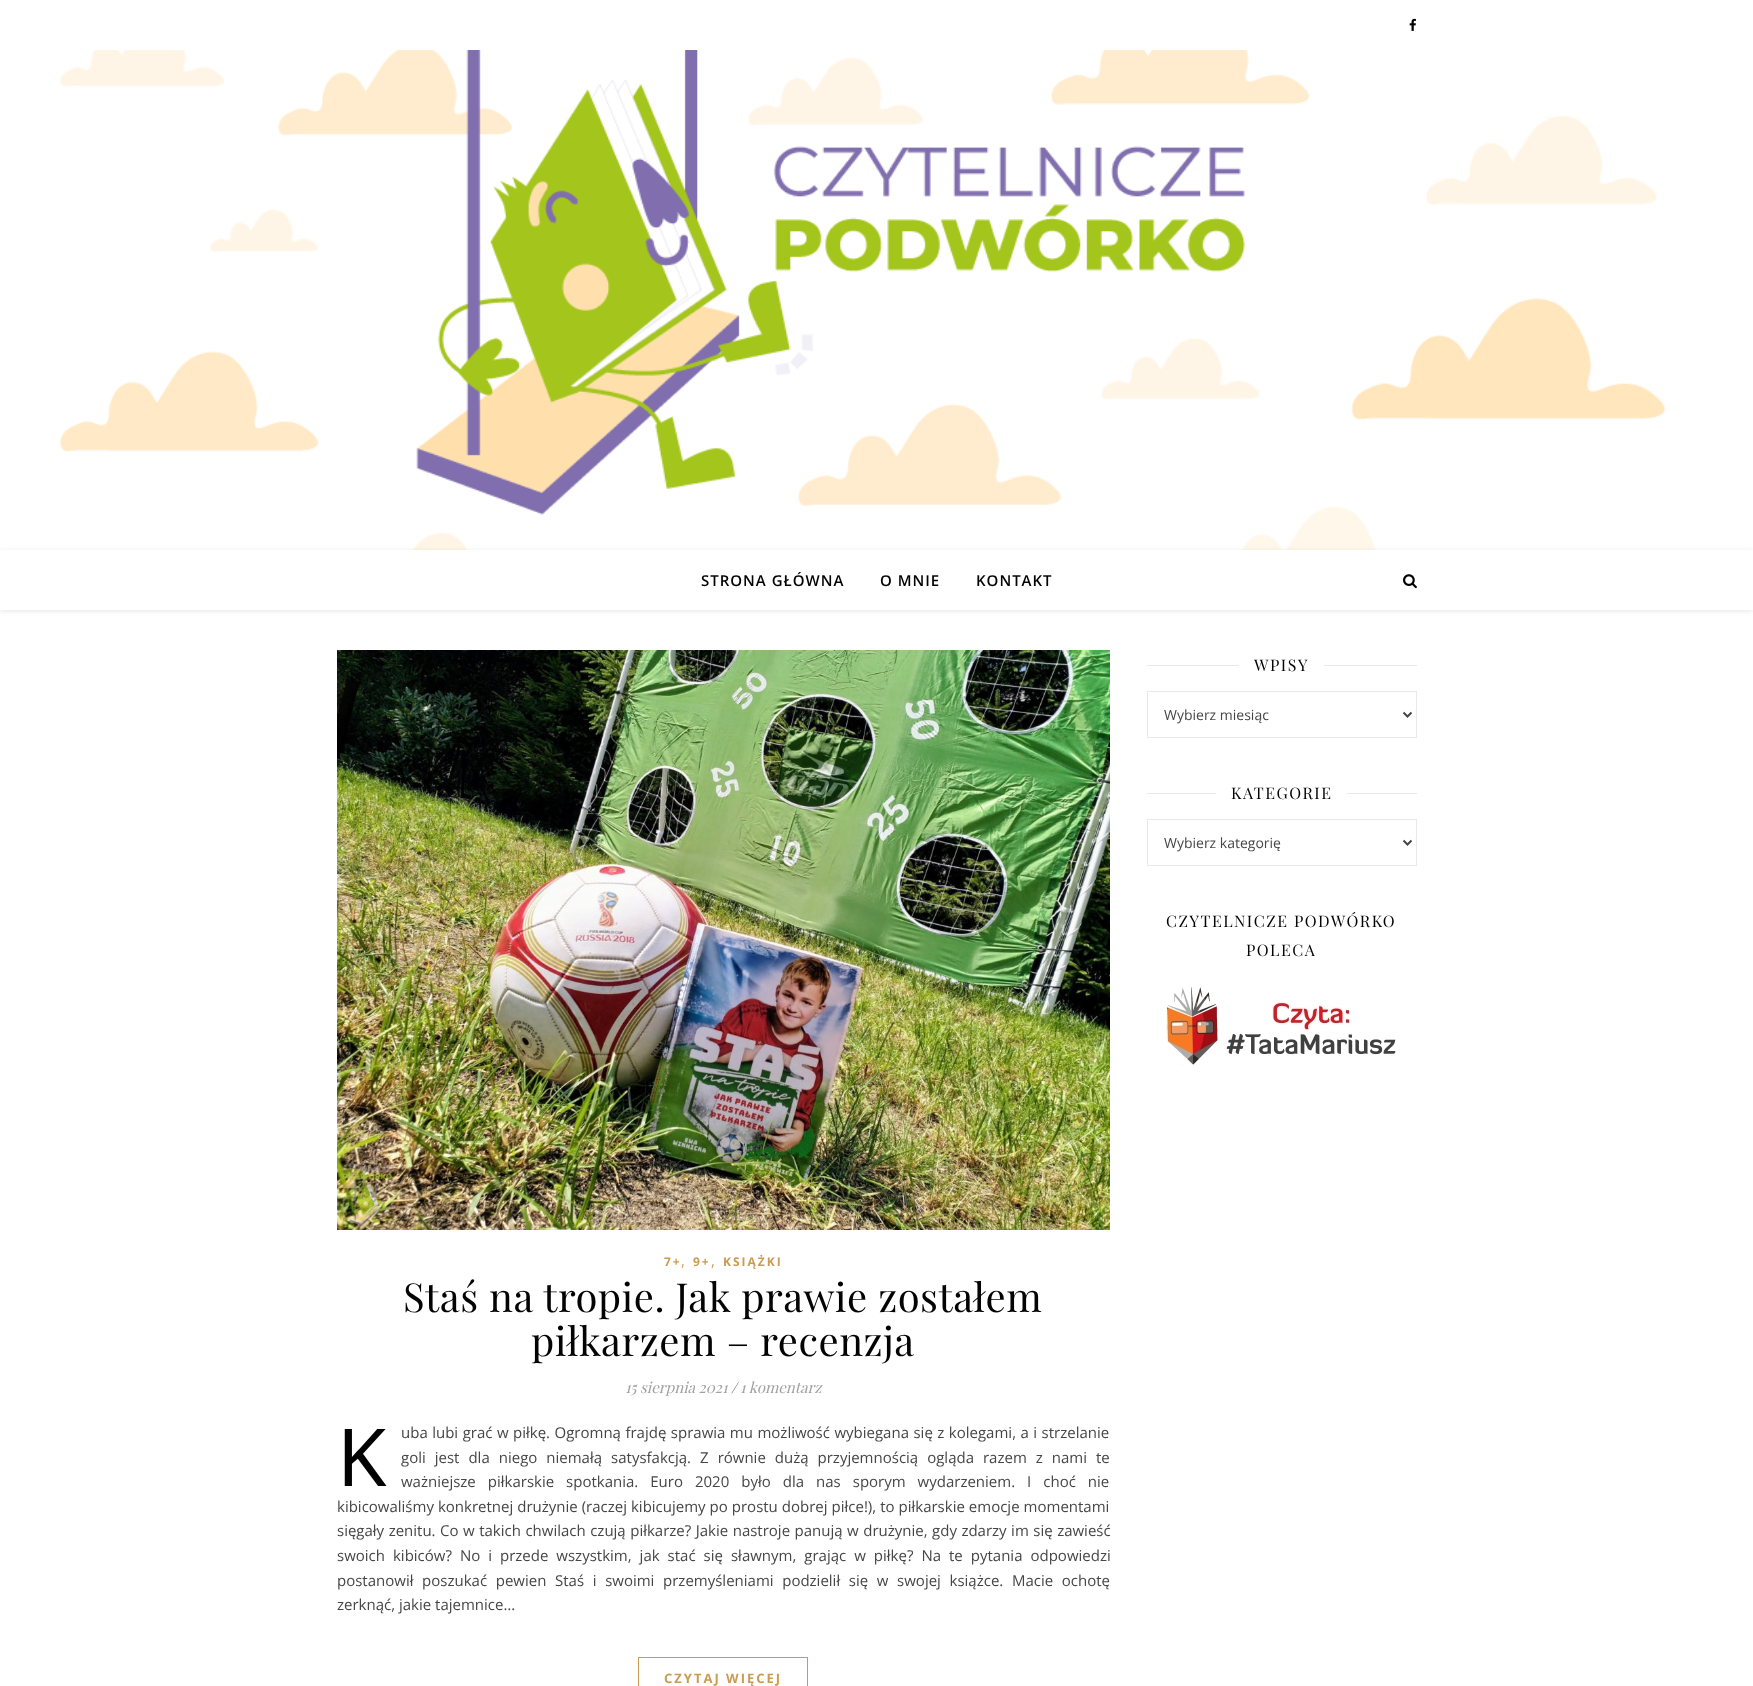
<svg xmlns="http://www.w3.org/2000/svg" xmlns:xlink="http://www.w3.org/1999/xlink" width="1753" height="1686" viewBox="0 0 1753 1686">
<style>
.cls-1{font:600 15px Open Sans;letter-spacing:1px;fill:#030303}
.cls-2{font:16px Playfair Display;letter-spacing:1.5px;fill:#030303}
.cls-3{font:14px Open Sans;fill:#464646}
.cls-4{font:bold 12px Open Sans;letter-spacing:2px;fill:#ca9b52}
.cls-5{font:15px Open Sans;fill:#ca9b52}
.cls-6{font:40px Playfair Display;letter-spacing:0.5px;fill:#030303}
.cls-7{font:italic 15px Playfair Display;fill:#a1a1a1}
.cls-8{font:italic 15px Playfair Display;fill:#464646}
.cls-9{font:80px Noto Sans;fill:#030303}
.cls-10{font:15px Open Sans;fill:#464646}
.cls-11{font:bold 13px Open Sans;letter-spacing:2px;fill:#ca9b52}
</style>
<defs>
<clipPath id="clip1"><path d="M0 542H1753V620H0ZM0 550H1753V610H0Z" clip-rule="evenodd"/></clipPath>
</defs>
<rect width="100%" height="100%" fill="#ffffff"/>
<image xlink:href="image0.png" x="1409" y="18" width="7" height="13"/>
<image xlink:href="image1.png" x="60" y="50" width="1606" height="500"/>
<g clip-path="url(#clip1)">
<rect fill="#000000" fill-opacity="0.1" filter="blur(2.5px)" x="0" y="551" width="1753" height="60"/>
</g>
<image xlink:href="image2.png" x="1403" y="574" width="14" height="15"/>
<rect fill="#e8e8e8" x="1147" y="665" width="92" height="1"/>
<rect fill="#e8e8e8" x="1324" y="665" width="93" height="1"/>
<rect fill="none" stroke="#e8e8e8" x="1147.5" y="691.5" width="269" height="46"/>
<path fill="none" stroke="#464646" stroke-width="2" d="M1403.5 712.5L1407.5 716.5L1411.5 712.5"/>
<rect fill="#e8e8e8" x="1147" y="793" width="69" height="1"/>
<rect fill="#e8e8e8" x="1347" y="793" width="70" height="1"/>
<rect fill="none" stroke="#e8e8e8" x="1147.5" y="819.5" width="269" height="46"/>
<path fill="none" stroke="#464646" stroke-width="2" d="M1403.5 840.5L1407.5 844.5L1411.5 840.5"/>
<image xlink:href="image3.png" x="1166" y="987" width="230" height="78"/>
<image xlink:href="image4.png" x="337" y="650" width="773" height="580"/>
<rect fill="none" stroke="#ca9b52" x="638.5" y="1657.5" width="169" height="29"/>
<text class="cls-1" x="701" y="586">STRONA GŁÓWNA</text>
<text class="cls-1" x="880" y="586">O MNIE</text>
<text class="cls-1" x="976" y="586">KONTAKT</text>
<text class="cls-2" x="1254" y="671">WPISY</text>
<text class="cls-3" x="1164" y="720">Wybierz miesiąc</text>
<text class="cls-2" x="1231" y="799">KATEGORIE</text>
<text class="cls-3" x="1164" y="848">Wybierz kategorię</text>
<text class="cls-2" x="1166" y="927">CZYTELNICZE PODWÓRKO</text>
<text class="cls-2" x="1246" y="956">POLECA</text>
<text class="cls-4" x="664" y="1266">7+</text>
<text class="cls-5" x="681" y="1266">,</text>
<text class="cls-4" x="693" y="1266">9+</text>
<text class="cls-5" x="711" y="1266">,</text>
<text class="cls-4" x="723" y="1266">KSIĄŻKI</text>
<text class="cls-6" x="403" y="1312">Staś na tropie. Jak prawie zostałem</text>
<text class="cls-6" x="531" y="1356">piłkarzem – recenzja</text>
<text class="cls-7" x="625" y="1393">15 sierpnia 2021</text>
<text class="cls-8" x="731" y="1393">/</text>
<text class="cls-7" x="740" y="1393">1 komentarz</text>
<text class="cls-9" x="337" y="1486">K</text>
<text class="cls-10"><tspan x="401" y="1438" word-spacing="0.6">uba lubi grać w piłkę. Ogromną frajdę sprawia mu możliwość wybiegana się z kolegami, a i strzelanie</tspan><tspan x="401" y="1463" word-spacing="5.1">goli jest dla niego niemałą satysfakcją. Z równie dużą przyjemnością ogląda razem z nami te</tspan><tspan x="401" y="1487" word-spacing="8.1">ważniejsze piłkarskie spotkania. Euro 2020 było dla nas sporym wydarzeniem. I choć nie</tspan></text>
<text class="cls-10"><tspan x="337" y="1512" word-spacing="0.1">kibicowaliśmy konkretnej drużynie (raczej kibicujemy po prostu dobrej piłce!), to piłkarskie emocje momentami</tspan><tspan x="337" y="1536" word-spacing="0.6">sięgały zenitu. Co w takich chwilach czują piłkarze? Jakie nastroje panują w drużynie, gdy zdarzy im się zawieść</tspan><tspan x="337" y="1561" word-spacing="4.1">swoich kibiców? No i przede wszystkim, jak stać się sławnym, grając w piłkę? Na te pytania odpowiedzi</tspan><tspan x="337" y="1586" word-spacing="4.75">postanowił poszukać pewien Staś i swoimi przemyśleniami podzielił się w swojej książce. Macie ochotę</tspan><tspan x="337" y="1610">zerknąć, jakie tajemnice…</tspan></text>
<text class="cls-11" x="664" y="1683">CZYTAJ WIĘCEJ</text>
</svg>
